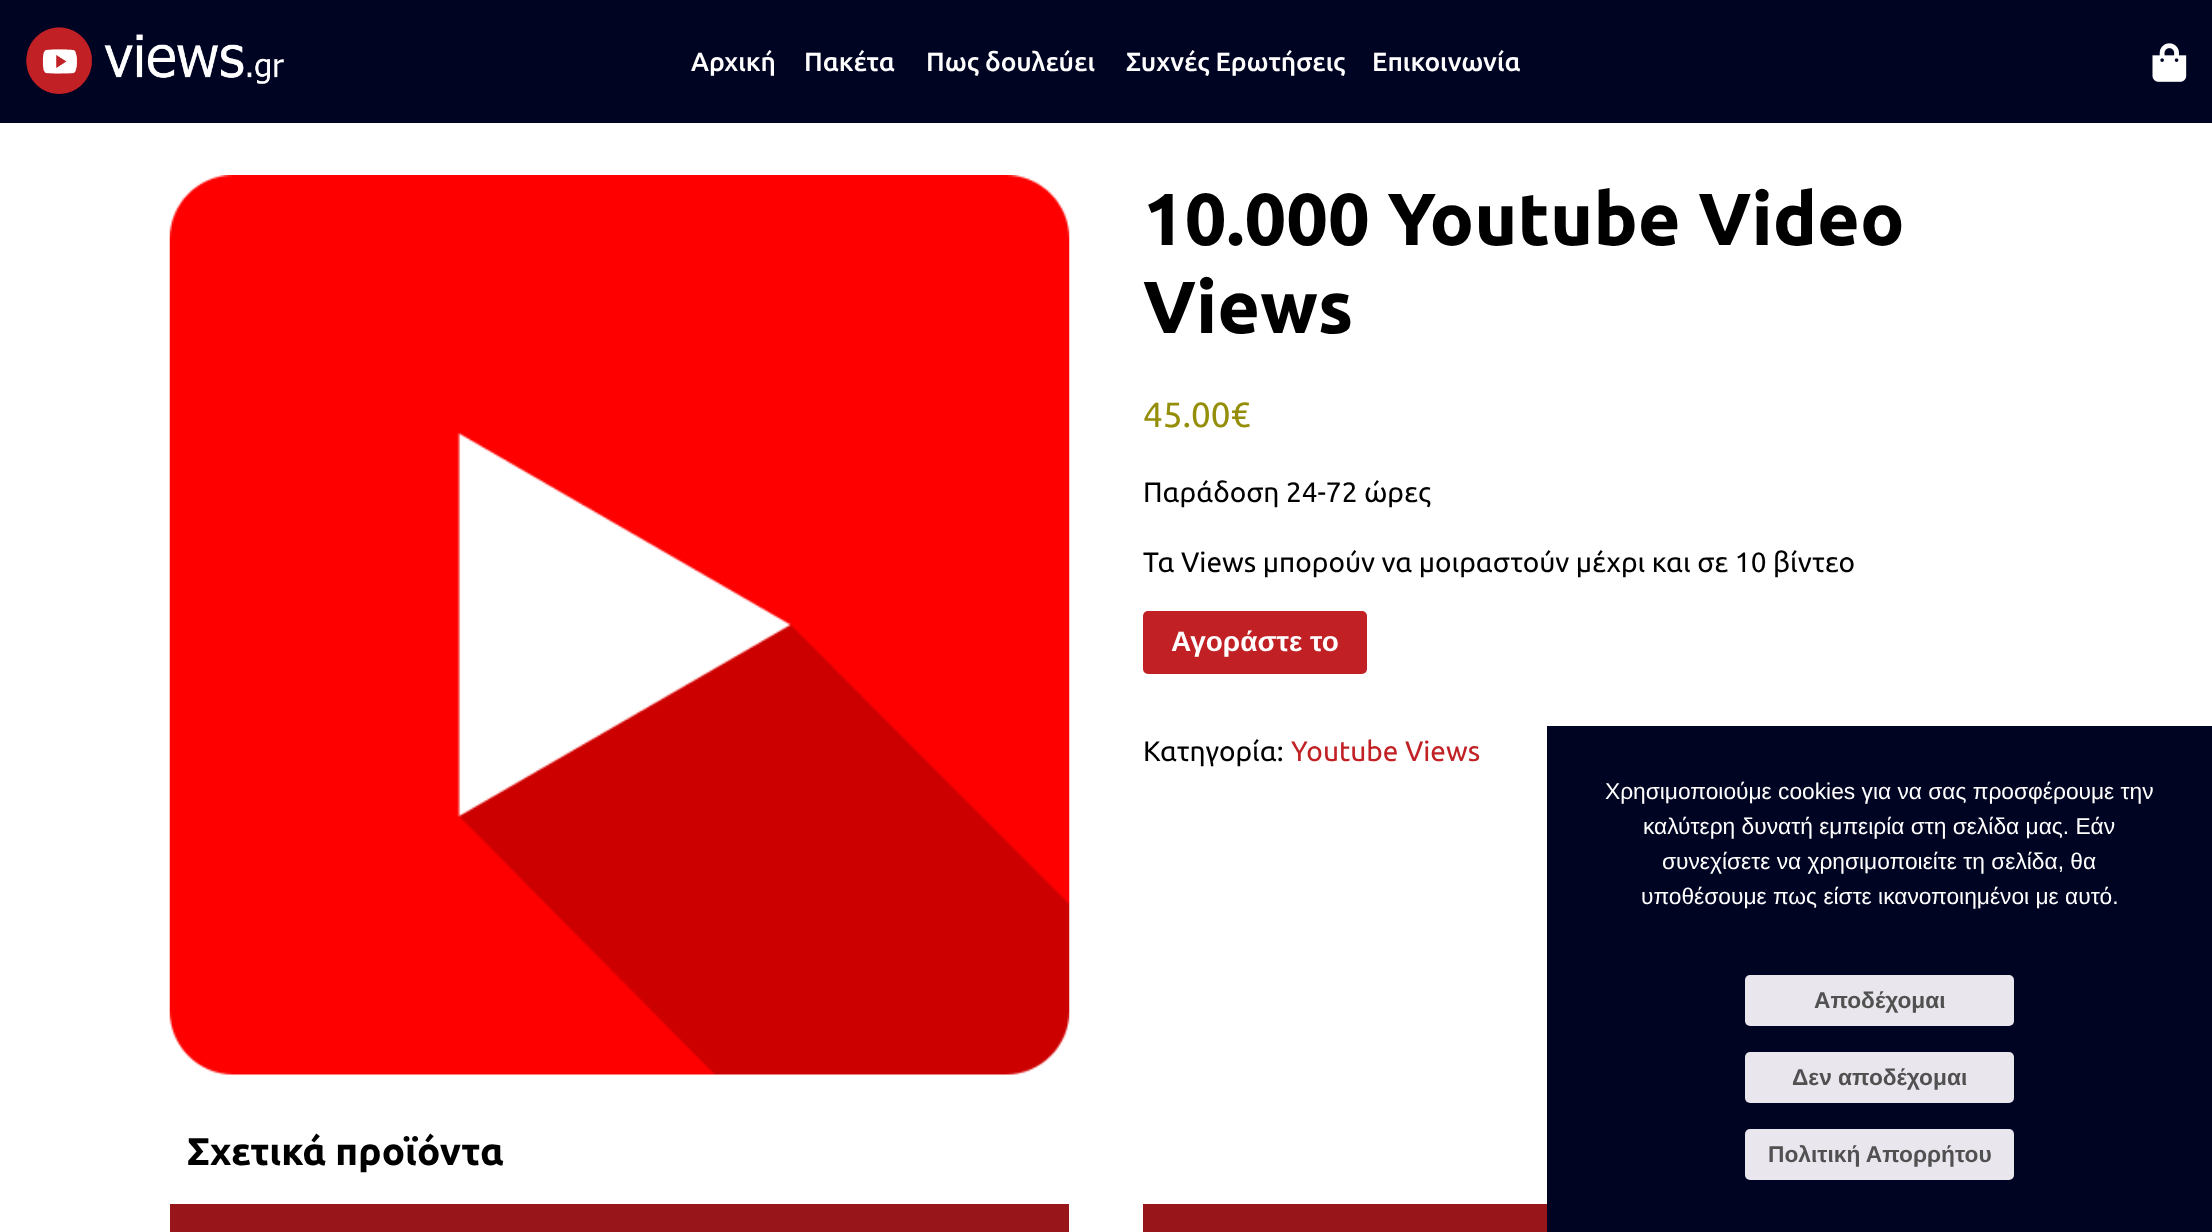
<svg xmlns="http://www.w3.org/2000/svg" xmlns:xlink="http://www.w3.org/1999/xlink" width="2212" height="1232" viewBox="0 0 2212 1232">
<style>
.cls-1{font:500 26.25px Ubuntu;fill:#ffffff}
.cls-2{font:bold 73.5px Ubuntu;fill:#000000}
.cls-3{font:35px Ubuntu;fill:#958e09}
.cls-4{font:28px Ubuntu;fill:#000000}
.cls-5{font:bold 28px Liberation Sans;fill:#ffffff}
.cls-6{font:28px Ubuntu;fill:#c12025}
.cls-7{font:bold 38.5px Ubuntu;fill:#000000}
.cls-8{font:22.75px Liberation Sans;fill:#ffffff}
.cls-9{font:bold 22.75px Liberation Sans;fill:#515151}
</style>
<rect width="100%" height="100%" fill="#ffffff"/>
<rect fill="#000423" x="0" y="0" width="2212" height="123"/>
<image xlink:href="image0.png" x="26" y="27" width="258" height="67"/>
<image xlink:href="image1.png" x="2152" y="43" width="35" height="39"/>
<image xlink:href="image2.png" x="169" y="175" width="901" height="900"/>
<rect fill="#c12025" x="1143" y="611" width="224" height="63" rx="5"/>
<rect fill="#98161a" x="170" y="1204" width="899" height="28"/>
<rect fill="#98161a" x="1143" y="1204" width="404" height="28"/>
<rect fill="#000423" x="1547" y="726" width="665" height="506"/>
<rect fill="#e9e6ed" x="1745" y="975" width="269" height="51" rx="5"/>
<rect fill="#e9e6ed" x="1745" y="1052" width="269" height="51" rx="5"/>
<rect fill="#e9e6ed" x="1745" y="1129" width="269" height="51" rx="5"/>
<text class="cls-1" x="691" y="71">Αρχική</text>
<text class="cls-1" x="804" y="71">Πακέτα</text>
<text class="cls-1" x="926" y="71">Πως δουλεύει</text>
<text class="cls-1" x="1126" y="71">Συχνές Ερωτήσεις</text>
<text class="cls-1" x="1372" y="71">Επικοινωνία</text>
<text class="cls-2"><tspan x="1143" y="245">10.000 Youtube Video</tspan><tspan x="1143" y="333">Views</tspan></text>
<text class="cls-3" x="1143" y="427">45.00€</text>
<text class="cls-4" x="1143" y="502">Παράδοση 24-72 ώρες</text>
<text class="cls-4" x="1143" y="572">Τα Views μπορούν να μοιραστούν μέχρι και σε 10 βίντεο</text>
<text class="cls-5" x="1171" y="651">Αγοράστε το</text>
<text class="cls-4" x="1143" y="761">Κατηγορία:</text>
<text class="cls-6" x="1291" y="761">Youtube Views</text>
<text class="cls-7" x="187" y="1165">Σχετικά προϊόντα</text>
<text class="cls-8" x="1605" y="799">Χρησιμοποιούμε cookies για να σας προσφέρουμε την</text>
<text class="cls-8" x="1643" y="834">καλύτερη δυνατή εμπειρία στη σελίδα μας. Εάν</text>
<text class="cls-8" x="1662" y="869">συνεχίσετε να χρησιμοποιείτε τη σελίδα, θα</text>
<text class="cls-8" x="1641" y="904">υποθέσουμε πως είστε ικανοποιημένοι με αυτό.</text>
<text class="cls-9" x="1814" y="1008">Αποδέχομαι</text>
<text class="cls-9" x="1792" y="1085">Δεν αποδέχομαι</text>
<text class="cls-9" x="1768" y="1162">Πολιτική Απορρήτου</text>
</svg>
